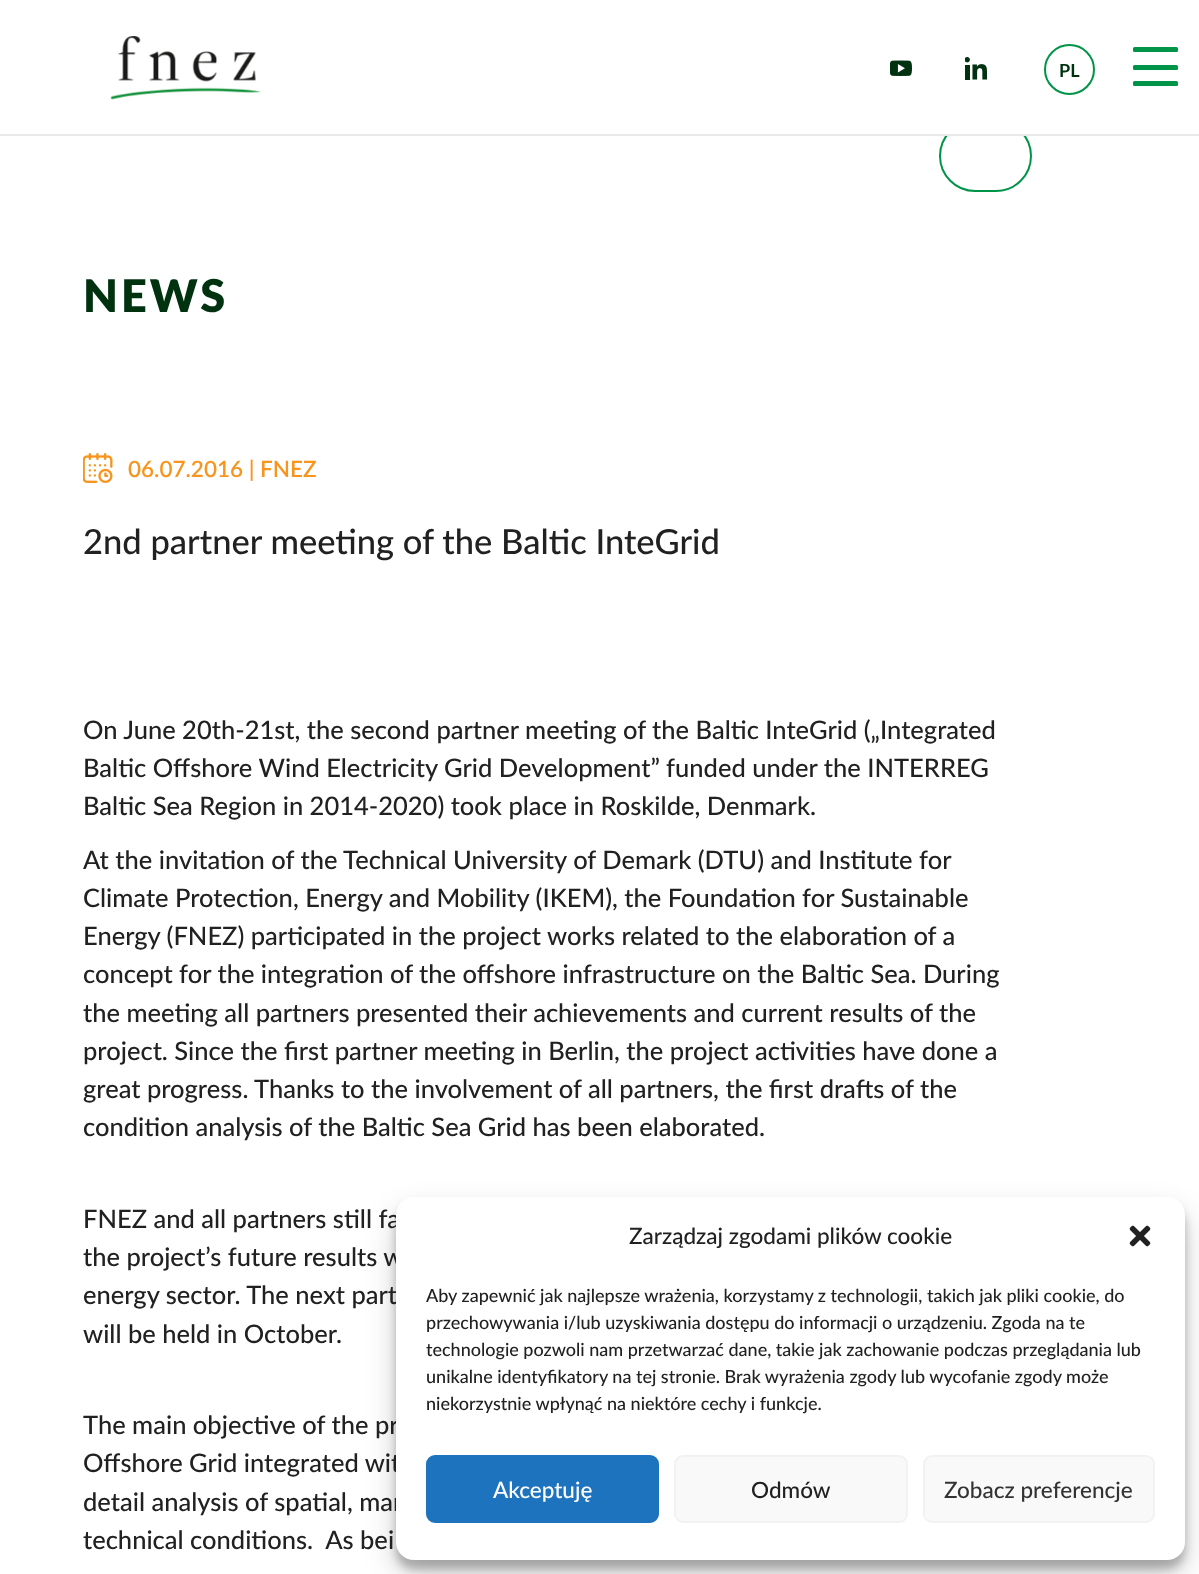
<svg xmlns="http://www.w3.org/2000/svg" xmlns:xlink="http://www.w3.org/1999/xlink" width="1199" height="1574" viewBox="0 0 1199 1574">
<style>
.cls-1{font:bold 18px Lato;fill:#003210}
.cls-2{font:800 45px Lato;letter-spacing:3px;fill:#003210}
.cls-3{font:600 22.5px Lato;fill:#f7951f}
.cls-4{font:500 34.5px Lato;fill:#212121}
.cls-5{font:500 25.5px Lato;fill:#212121}
.cls-6{font:500 22.5px Lato;fill:#212121}
.cls-7{font:500 18px Lato;fill:#212121}
.cls-8{font:500 22.5px Lato;fill:#ffffff}
.cls-9{font:500 22.5px Lato;fill:#333333}
</style>
<rect width="100%" height="100%" fill="#ffffff"/>
<image xlink:href="image0.png" x="890" y="60" width="22" height="16"/>
<image xlink:href="image1.png" x="965" y="57" width="22" height="23"/>
<rect fill="none" stroke="#009448" stroke-width="2" x="940" y="121" width="91" height="70" rx="35"/>
<rect fill="#ffffff" x="946" y="120" width="79" height="14"/>
<rect fill="#e9e9e9" x="0" y="134" width="1199" height="2"/>
<image xlink:href="image2.png" x="110" y="36" width="151" height="64"/>
<circle fill="none" stroke="#009448" stroke-width="2" cx="1069.5" cy="69.5" r="24.5"/>
<rect fill="#009448" x="1133" y="47" width="45" height="5" rx="1.5"/>
<rect fill="#009448" x="1133" y="65" width="45" height="5" rx="1.5"/>
<rect fill="#009448" x="1133" y="81" width="45" height="5" rx="1.5"/>
<image xlink:href="image3.png" x="83" y="453" width="30" height="30"/>
<rect fill="#000000" fill-opacity="0.23" filter="blur(4.5px)" x="396" y="1206" width="789" height="363" rx="18"/>
<rect fill="#000000" fill-opacity="0.19" filter="blur(15px)" x="396" y="1212" width="789" height="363" rx="18"/>
<text class="cls-1" x="1059" y="77">PL</text>
<text class="cls-2" x="83" y="312">NEWS</text>
<text class="cls-3" x="128" y="477">06.07.2016 | FNEZ</text>
<text class="cls-4" x="83" y="554">2nd partner meeting of the Baltic InteGrid</text>
<text class="cls-5"><tspan x="83" y="739">On June 20th-21st, the second partner meeting of the Baltic InteGrid („Integrated</tspan><tspan x="83" y="777">Baltic Offshore Wind Electricity Grid Development” funded under the INTERREG</tspan><tspan x="83" y="815">Baltic Sea Region in 2014-2020) took place in Roskilde, Denmark.</tspan></text>
<text class="cls-5"><tspan x="83" y="869">At the invitation of the Technical University of Demark (DTU) and Institute for</tspan><tspan x="83" y="907">Climate Protection, Energy and Mobility (IKEM), the Foundation for Sustainable</tspan><tspan x="83" y="945">Energy (FNEZ) participated in the project works related to the elaboration of a</tspan><tspan x="83" y="983">concept for the integration of the offshore infrastructure on the Baltic Sea. During</tspan><tspan x="83" y="1022">the meeting all partners presented their achievements and current results of the</tspan><tspan x="83" y="1060">project. Since the first partner meeting in Berlin, the project activities have done a</tspan><tspan x="83" y="1098">great progress. Thanks to the involvement of all partners, the first drafts of the</tspan><tspan x="83" y="1136">condition analysis of the Baltic Sea Grid has been elaborated.</tspan></text>
<text class="cls-5"><tspan x="83" y="1228">FNEZ and all partners still fa</tspan><tspan x="83" y="1266">the project’s future results w</tspan><tspan x="83" y="1304">energy sector. The next part</tspan><tspan x="83" y="1343">will be held in October.</tspan></text>
<text class="cls-5" xml:space="preserve"><tspan x="83" y="1434">The main objective of the pr</tspan><tspan x="83" y="1472">Offshore Grid integrated wit</tspan><tspan x="83" y="1511">detail analysis of spatial, mar</tspan><tspan x="83" y="1549">technical conditions.  As bei</tspan></text>
<rect fill="#ffffff" x="396" y="1197" width="789" height="363" rx="18"/>
<text class="cls-6" x="629" y="1244">Zarządzaj zgodami plików cookie</text>
<image xlink:href="image4.png" x="1129" y="1225" width="22" height="22"/>
<text class="cls-7"><tspan x="426" y="1302">Aby zapewnić jak najlepsze wrażenia, korzystamy z technologii, takich jak pliki cookie, do</tspan><tspan x="426" y="1329">przechowywania i/lub uzyskiwania dostępu do informacji o urządzeniu. Zgoda na te</tspan><tspan x="426" y="1356">technologie pozwoli nam przetwarzać dane, takie jak zachowanie podczas przeglądania lub</tspan><tspan x="426" y="1383">unikalne identyfikatory na tej stronie. Brak wyrażenia zgody lub wycofanie zgody może</tspan><tspan x="426" y="1410">niekorzystnie wpłynąć na niektóre cechy i funkcje.</tspan></text>
<rect fill="#1e73be" stroke="#1e73be" stroke-width="2" x="427" y="1456" width="231" height="66" rx="8"/>
<text class="cls-8" x="493" y="1498">Akceptuję</text>
<rect fill="#f9f9f9" stroke="#f2f2f2" stroke-width="2" x="675" y="1456" width="232" height="66" rx="8"/>
<text class="cls-6" x="751" y="1498">Odmów</text>
<rect fill="#f9f9f9" stroke="#f2f2f2" stroke-width="2" x="924" y="1456" width="230" height="66" rx="8"/>
<text class="cls-9" x="944" y="1498">Zobacz preferencje</text>
</svg>
